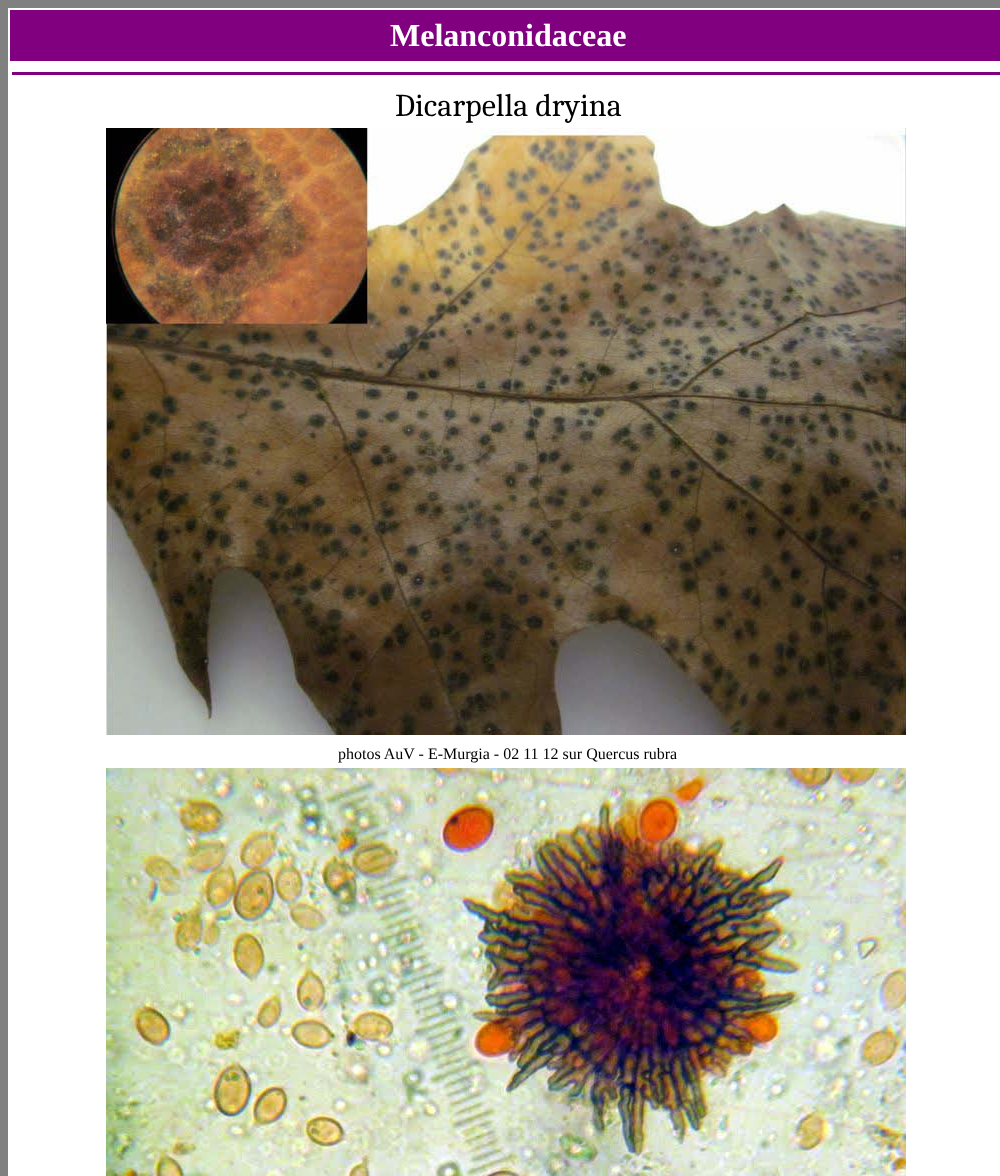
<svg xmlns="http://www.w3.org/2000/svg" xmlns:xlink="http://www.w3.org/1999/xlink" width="1000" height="1176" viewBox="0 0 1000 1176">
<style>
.cls-1{font:bold 32px Liberation Serif;fill:#ffffff}
.cls-2{font:32px Caladea;fill:#000000}
.cls-3{font:16px Liberation Serif;fill:#000000}
</style>
<rect width="100%" height="100%" fill="#808080"/>
<rect fill="#ffffff" x="8" y="8" width="992" height="1168"/>
<rect fill="#800080" x="10" y="10" width="990" height="51"/>
<rect fill="#800080" x="12" y="72" width="988" height="3"/>
<image xlink:href="image0.png" x="106" y="128" width="800" height="607"/>
<image xlink:href="image1.png" x="106" y="768" width="800" height="408"/>
<text class="cls-1" x="390" y="46">Melanconidaceae</text>
<text class="cls-2" x="395" y="116">Dicarpella dryina</text>
<text class="cls-3" x="338" y="759">photos AuV - E-Murgia - 02 11 12 sur Quercus rubra</text>
</svg>
